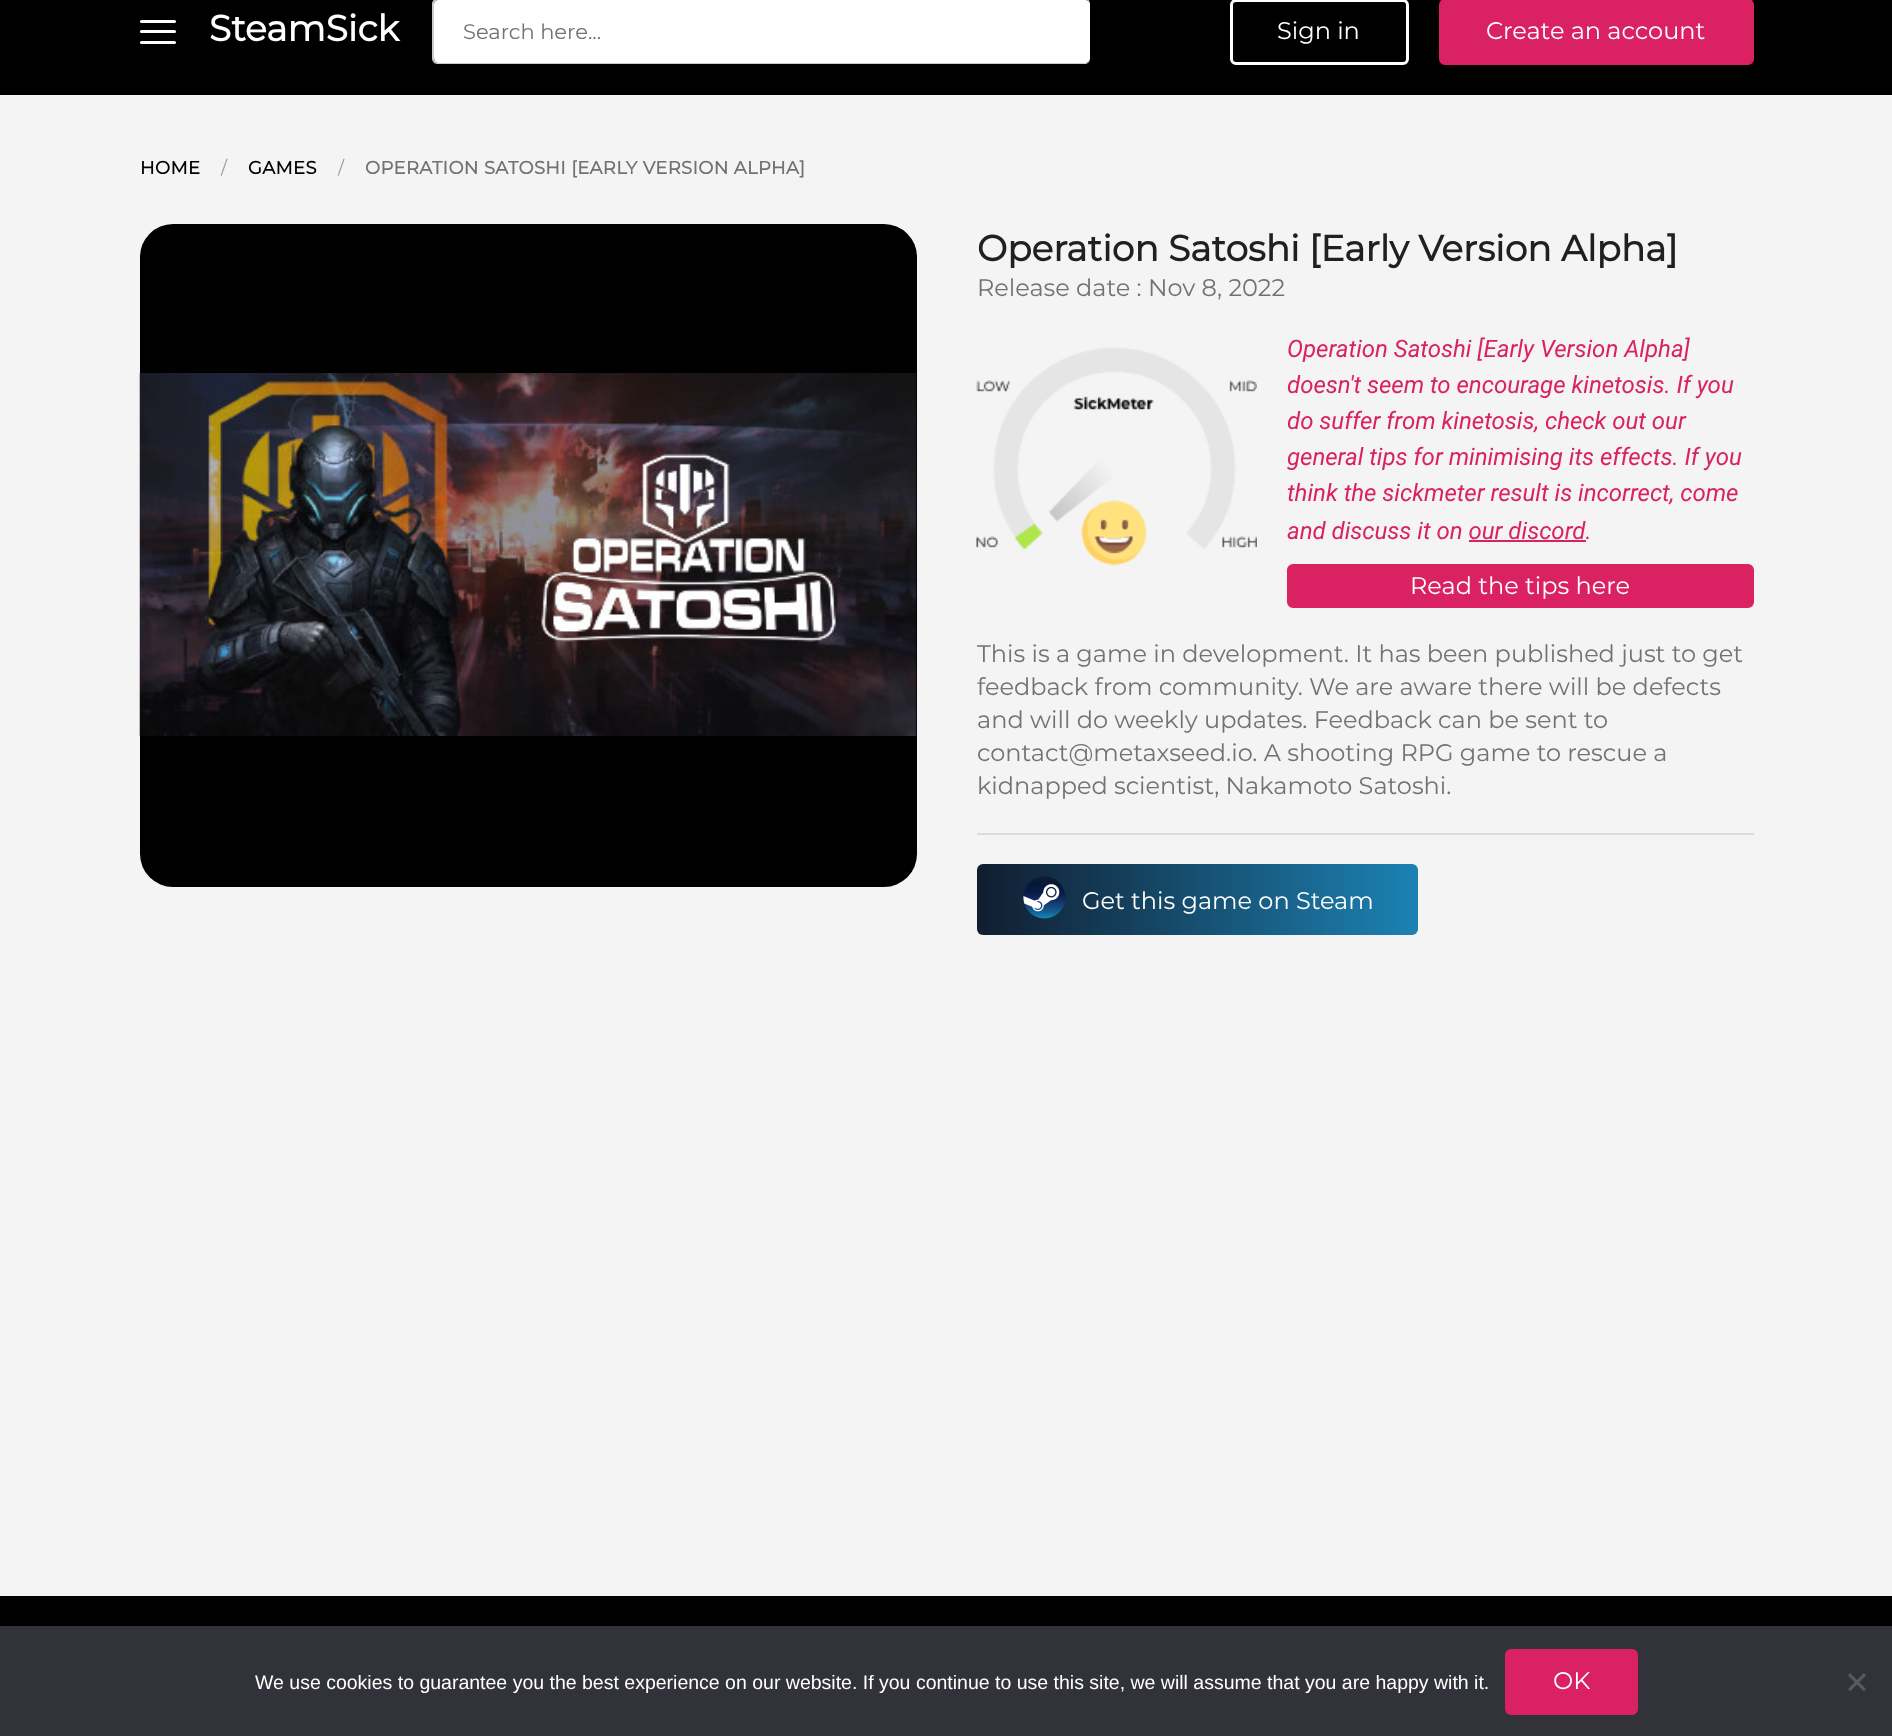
<svg xmlns="http://www.w3.org/2000/svg" xmlns:xlink="http://www.w3.org/1999/xlink" width="1892" height="1736" viewBox="0 0 1892 1736">
<style>
.cls-1{font:bold 36px Montserrat;fill:#ffffff}
.cls-2{font:100 21px Montserrat;fill:#727272}
.cls-3{font:100 24px Montserrat;fill:#ffffff}
.cls-4{font:bold 18px Montserrat;letter-spacing:0.35px;fill:#000000}
.cls-5{font:100 18px Montserrat;letter-spacing:0.35px;fill:#969ba7}
.cls-6{font:bold 18px Montserrat;letter-spacing:0.35px;fill:#727272}
.cls-7{font:bold 36px Montserrat;fill:#202020}
.cls-8{font:100 24px Montserrat;fill:#727272}
.cls-9{font:italic 24px Roboto;fill:#da2262}
.cls-10{font:19.5px Liberation Sans;fill:#ffffff}
</style>
<defs>
<linearGradient id="g1" gradientUnits="userSpaceOnUse" x1="977" y1="899" x2="1418" y2="899"><stop offset="0" stop-color="#111d2f"/><stop offset="1" stop-color="#1c82b3"/></linearGradient>
</defs>
<rect width="100%" height="100%" fill="#f4f4f4"/>
<rect fill="#000000" x="0" y="0" width="1892" height="95"/>
<rect fill="#ffffff" x="140" y="30" width="36" height="3" rx="1.5"/>
<rect fill="#ffffff" x="140" y="20" width="36" height="3" rx="1.5"/>
<rect fill="#ffffff" x="140" y="41" width="36" height="3" rx="1.5"/>
<path fill="#ffffff" d="M438 0H1084C1088 0 1090 2 1090 4V58C1090 61 1088 63 1084 63H438C436 63 434 61 434 58V4C434 2 436 0 438 0Z"/>
<path fill="#cccccc" fill-rule="evenodd" d="M438-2H1084C1088-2 1090 1 1090 4V58C1090 62 1088 64 1084 64H438C435 64 432 62 432 58V4C432 1 435-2 438-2ZM438 0H1084C1088 0 1090 2 1090 4V58C1090 61 1088 63 1084 63H438C436 63 434 61 434 58V4C434 2 436 0 438 0Z"/>
<rect fill="none" stroke="#ffffff" stroke-width="3" x="1231.5" y="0.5" width="176" height="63" rx="4.5"/>
<rect fill="#da2262" stroke="#da2262" stroke-width="3" x="1440.5" y="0.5" width="312" height="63" rx="4.5"/>
<rect fill="#000000" x="140" y="224" width="777" height="663" rx="33"/>
<image xlink:href="image0.png" x="139" y="373" width="778" height="363"/>
<image xlink:href="image1.png" x="976" y="347" width="281" height="219"/>
<rect fill="#da2262" x="1469" y="540" width="117" height="2"/>
<rect fill="#da2262" stroke="#da2262" stroke-width="3" x="1288.5" y="565.5" width="464" height="41" rx="4.5"/>
<rect fill="#dbdbdb" x="977" y="833" width="777" height="2"/>
<rect fill="url(#g1)" x="977" y="864" width="441" height="71" rx="6"/>
<image xlink:href="image2.png" x="1023" y="876" width="43" height="43"/>
<rect fill="#000000" x="0" y="1596" width="1892" height="30"/>
<rect fill="#32323a" x="0" y="1626" width="1892" height="110"/>
<rect fill="#da2262" stroke="#da2262" stroke-width="3" x="1506.5" y="1650.5" width="130" height="63" rx="4.5"/>
<path fill="#59595d" d="M1864 1673L1866 1675.5L1850 1691.5L1848 1689Z"/>
<path fill="#59595d" d="M1848 1675.5L1850 1673L1866 1689L1864 1691.5Z"/>
<text class="cls-1" x="209" y="41">SteamSick</text>
<text class="cls-2" x="463" y="39">Search here...</text>
<text class="cls-3" x="1277" y="39">Sign in</text>
<text class="cls-3" x="1486" y="39">Create an account</text>
<text class="cls-4" x="140" y="174">HOME</text>
<text class="cls-5" x="221" y="174">/</text>
<text class="cls-4" x="248" y="174">GAMES</text>
<text class="cls-5" x="338" y="174">/</text>
<text class="cls-6" x="365" y="174">OPERATION SATOSHI [EARLY VERSION ALPHA]</text>
<text class="cls-7" x="977" y="261">Operation Satoshi [Early Version Alpha]</text>
<text class="cls-8" x="977" y="296">Release date : Nov 8, 2022</text>
<text class="cls-9"><tspan x="1287" y="357">Operation Satoshi [Early Version Alpha]</tspan><tspan x="1287" y="393">doesn't seem to encourage kinetosis. If you</tspan><tspan x="1287" y="429">do suffer from kinetosis, check out our</tspan><tspan x="1287" y="465">general tips for minimising its effects. If you</tspan><tspan x="1287" y="501">think the sickmeter result is incorrect, come</tspan><tspan x="1287" y="539">and discuss it on our discord.</tspan></text>
<text class="cls-3" x="1410" y="594">Read the tips here</text>
<text class="cls-8"><tspan x="977" y="662">This is a game in development. It has been published just to get</tspan><tspan x="977" y="695">feedback from community. We are aware there will be defects</tspan><tspan x="977" y="728">and will do weekly updates. Feedback can be sent to</tspan><tspan x="977" y="761">contact@metaxseed.io. A shooting RPG game to rescue a</tspan><tspan x="977" y="794">kidnapped scientist, Nakamoto Satoshi.</tspan></text>
<text class="cls-3" x="1082" y="909">Get this game on Steam</text>
<text class="cls-10" x="255" y="1689">We use cookies to guarantee you the best experience on our website. If you continue to use this site, we will assume that you are happy with it.</text>
<text class="cls-3" x="1553" y="1689">OK</text>
</svg>
